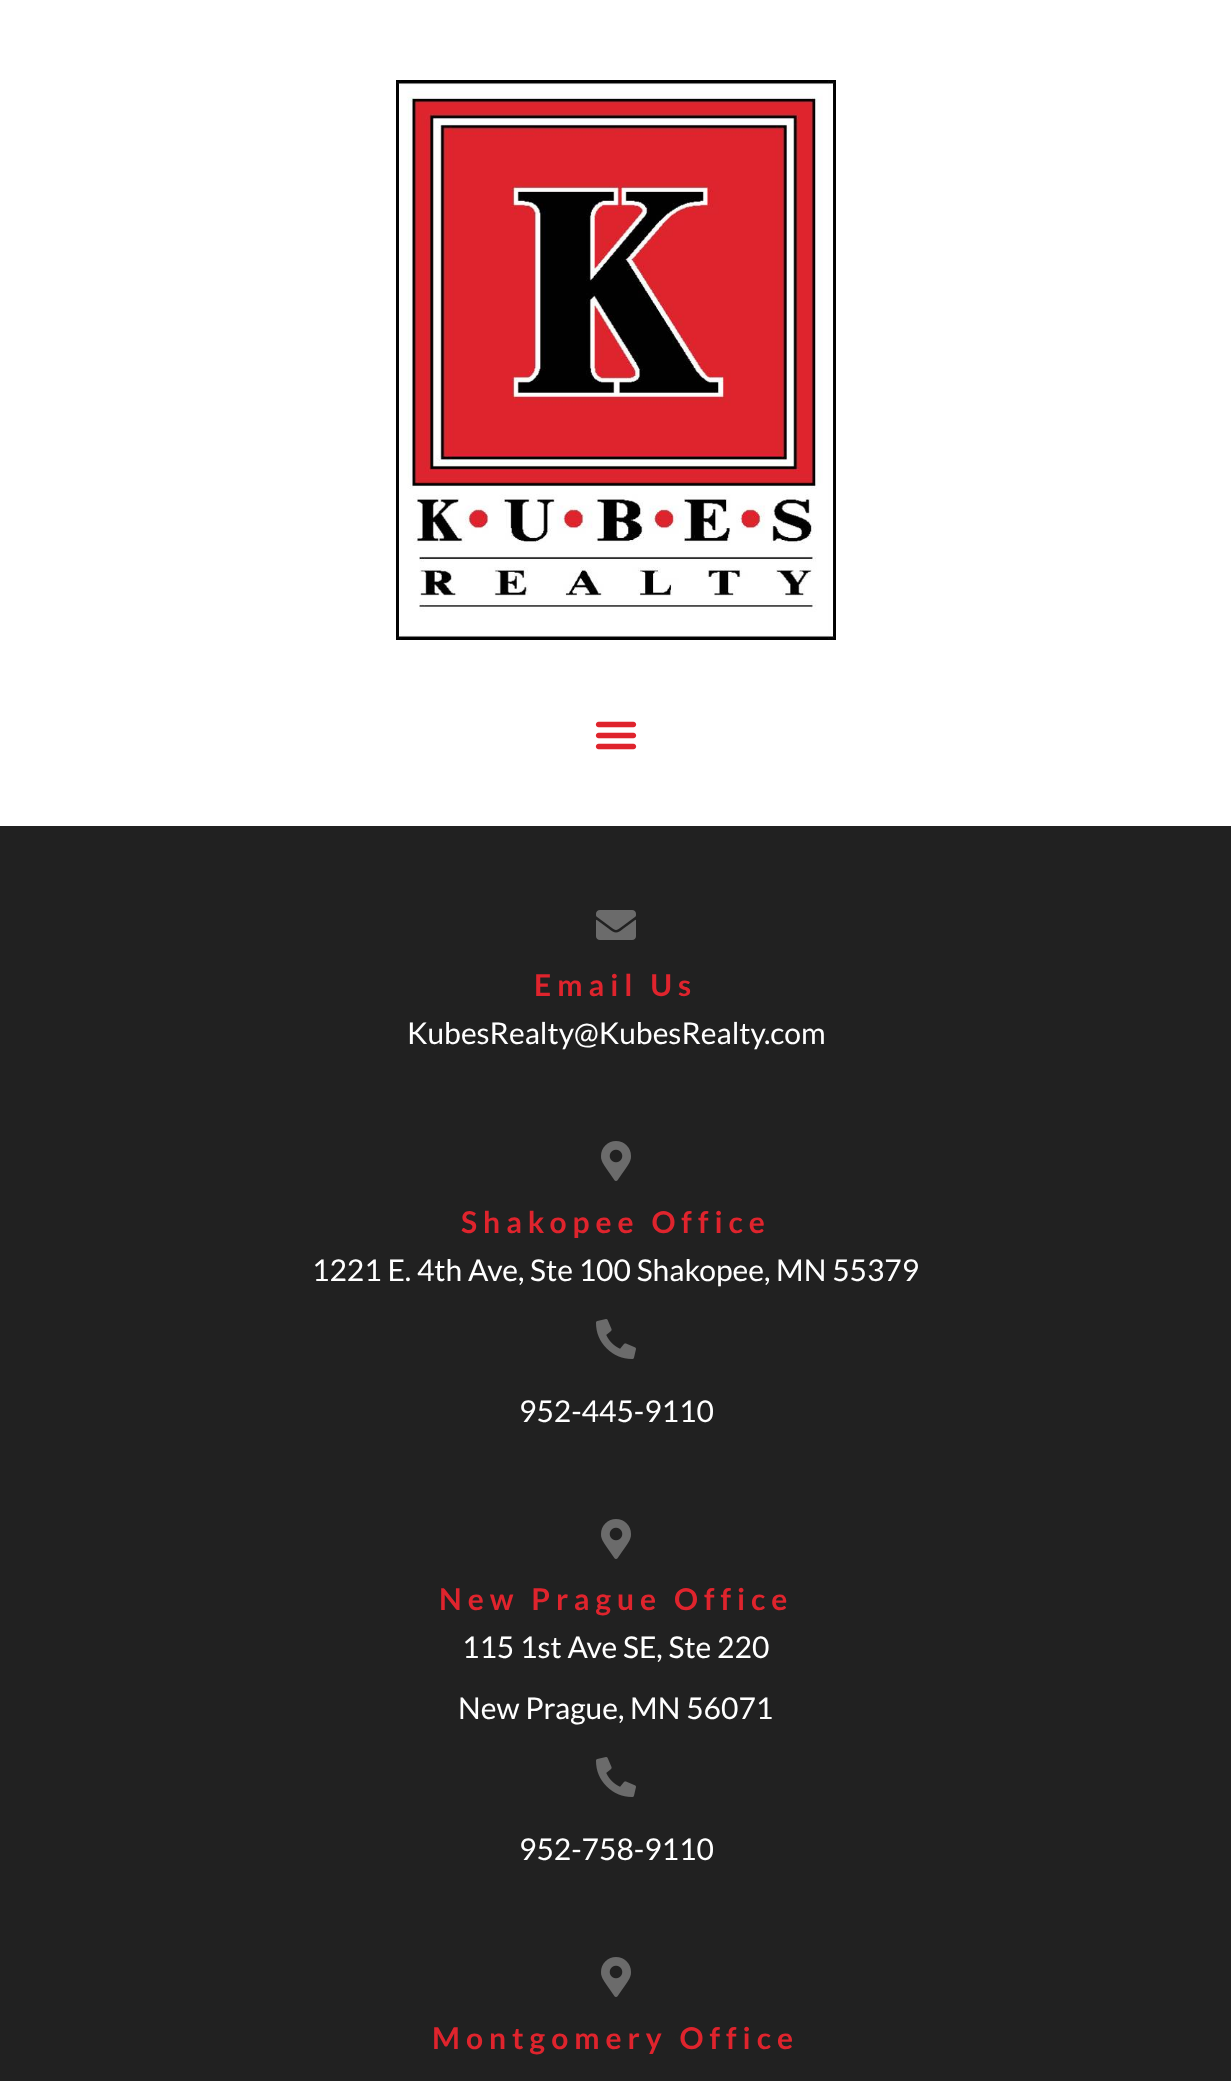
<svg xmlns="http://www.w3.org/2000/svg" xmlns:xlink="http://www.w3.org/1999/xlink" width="1231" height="2081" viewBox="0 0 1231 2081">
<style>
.cls-1{font:bold 30px Lato;letter-spacing:6px;fill:#df242d}
.cls-2{font:30px Lato;fill:#ffffff}
</style>
<rect width="100%" height="100%" fill="#ffffff"/>
<image xlink:href="image0.png" x="396" y="80" width="440" height="560"/>
<image xlink:href="image1.png" x="595" y="721" width="42" height="29"/>
<rect fill="#212121" x="0" y="826" width="1231" height="1255"/>
<image xlink:href="image2.png" x="596" y="910" width="40" height="30"/>
<image xlink:href="image3.png" x="601" y="1141" width="30" height="40"/>
<image xlink:href="image4.png" x="596" y="1319" width="40" height="40"/>
<image xlink:href="image3.png" x="601" y="1519" width="30" height="40"/>
<image xlink:href="image4.png" x="596" y="1757" width="40" height="40"/>
<image xlink:href="image3.png" x="601" y="1957" width="30" height="40"/>
<text class="cls-1" x="534" y="996">Email Us</text>
<text class="cls-2" x="407" y="1044">KubesRealty@KubesRealty.com</text>
<text class="cls-1" x="461" y="1233">Shakopee Office</text>
<text class="cls-2" x="312" y="1281">1221 E. 4th Ave, Ste 100 Shakopee, MN 55379</text>
<text class="cls-2" x="519" y="1422">952-445-9110</text>
<text class="cls-1" x="439" y="1610">New Prague Office</text>
<text class="cls-2" x="462" y="1658">115 1st Ave SE, Ste 220</text>
<text class="cls-2" x="458" y="1719">New Prague, MN 56071</text>
<text class="cls-2" x="519" y="1860">952-758-9110</text>
<text class="cls-1" x="432" y="2049">Montgomery Office</text>
</svg>
